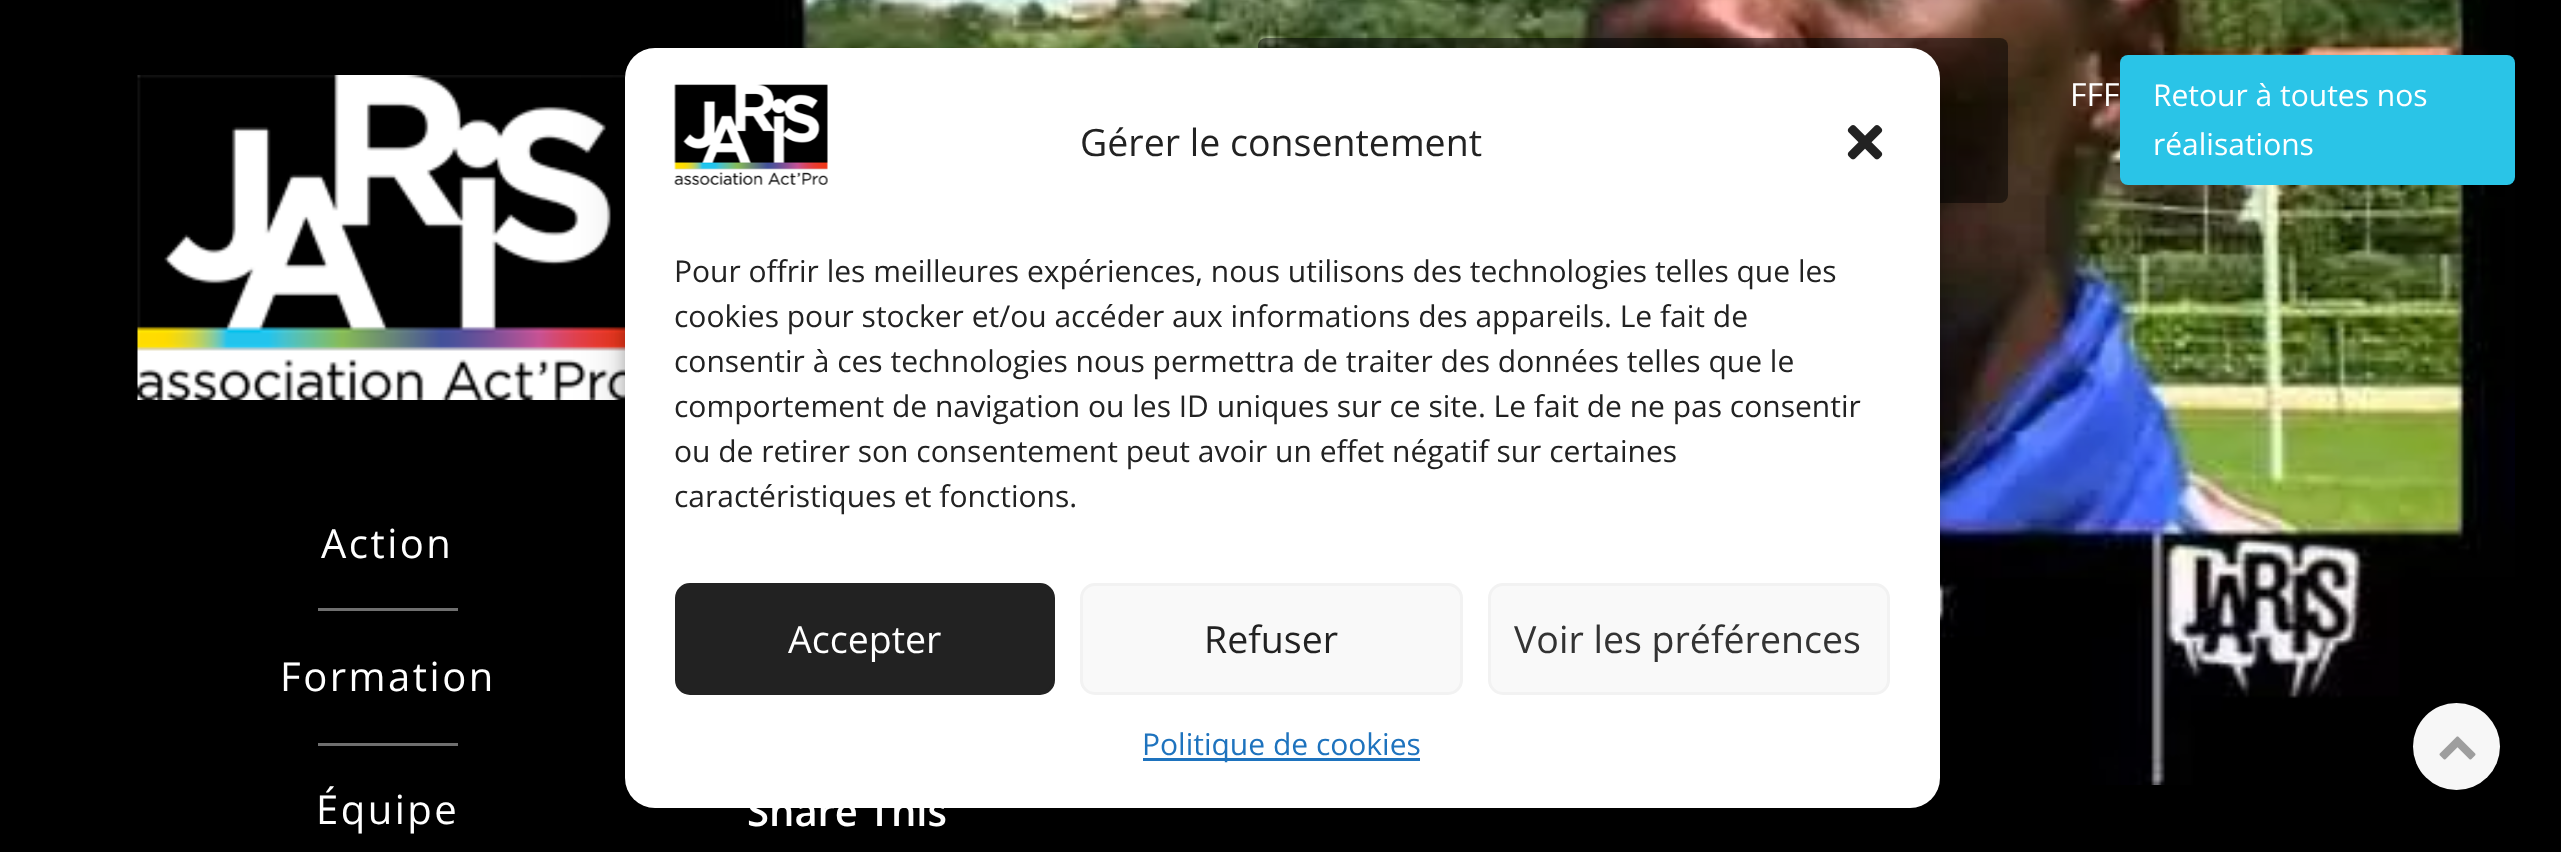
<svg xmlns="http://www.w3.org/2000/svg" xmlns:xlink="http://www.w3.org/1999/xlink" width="2561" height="852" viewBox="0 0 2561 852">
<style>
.cls-1{font:40px Open Sans;letter-spacing:2.5px;fill:#ffffff}
.cls-2{font:32px Open Sans;fill:#ffffff}
.cls-3{font:30px Open Sans;fill:#ffffff}
.cls-4{font:600 40px Open Sans;fill:#ffffff}
.cls-5{font:37.5px Open Sans;fill:#222222}
.cls-6{font:30px Open Sans;fill:#222222}
.cls-7{font:37.5px Open Sans;fill:#ffffff}
.cls-8{font:37.5px Open Sans;fill:#333333}
.cls-9{font:30px Open Sans;fill:#1e73be}
</style>
<rect width="100%" height="100%" fill="#000000"/>
<image xlink:href="image0.png" x="137" y="75" width="489" height="325"/>
<rect fill="#6f6f6f" x="318" y="608" width="140" height="3"/>
<rect fill="#6f6f6f" x="318" y="743" width="140" height="3"/>
<image xlink:href="image1.png" x="748" y="0" width="1767" height="785"/>
<rect fill="#000000" fill-opacity="0.5" x="1258" y="38" width="750" height="165" rx="8"/>
<rect fill="#2ac4e7" x="2120" y="55" width="395" height="130" rx="8"/>
<rect fill="#000000" fill-opacity="0.23" filter="blur(7.5px)" x="625" y="63" width="1315" height="760" rx="30"/>
<rect fill="#000000" fill-opacity="0.19" filter="blur(25px)" x="625" y="73" width="1315" height="760" rx="30"/>
<rect fill="#ffffff" x="625" y="48" width="1315" height="760" rx="30"/>
<image xlink:href="image2.png" x="674" y="84" width="154" height="101"/>
<image xlink:href="image3.png" x="1847" y="125" width="36" height="35"/>
<rect fill="#222222" stroke="#222222" stroke-width="3" x="676.5" y="584.5" width="377" height="109" rx="13.5"/>
<rect fill="#f9f9f9" stroke="#f2f2f2" stroke-width="3" x="1081.5" y="584.5" width="380" height="109" rx="13.5"/>
<rect fill="#f9f9f9" stroke="#f2f2f2" stroke-width="3" x="1489.5" y="584.5" width="399" height="109" rx="13.5"/>
<rect fill="#1e73be" x="1143" y="758" width="277" height="3"/>
<circle fill="#f7f7f7" cx="2456.5" cy="746.5" r="43.5"/>
<image xlink:href="image4.png" x="2439" y="736" width="37" height="24"/>
<text class="cls-1" x="321" y="558">Action</text>
<text class="cls-1" x="280" y="691">Formation</text>
<text class="cls-1" x="316" y="824">Équipe</text>
<text class="cls-2" x="2070" y="106">FFF</text>
<text class="cls-3"><tspan x="2153" y="106">Retour à toutes nos</tspan><tspan x="2153" y="155">réalisations</tspan></text>
<text class="cls-4" x="747" y="826">Share This</text>
<text class="cls-5" x="1080" y="156">Gérer le consentement</text>
<text class="cls-6"><tspan x="674" y="282">Pour offrir les meilleures expériences, nous utilisons des technologies telles que les</tspan><tspan x="674" y="327">cookies pour stocker et/ou accéder aux informations des appareils. Le fait de</tspan><tspan x="674" y="372">consentir à ces technologies nous permettra de traiter des données telles que le</tspan><tspan x="674" y="417">comportement de navigation ou les ID uniques sur ce site. Le fait de ne pas consentir</tspan><tspan x="674" y="462">ou de retirer son consentement peut avoir un effet négatif sur certaines</tspan><tspan x="674" y="507">caractéristiques et fonctions.</tspan></text>
<text class="cls-7" x="788" y="653">Accepter</text>
<text class="cls-5" x="1204" y="653">Refuser</text>
<text class="cls-8" x="1514" y="653">Voir les préférences</text>
<text class="cls-9" x="1142" y="755">Politique de cookies</text>
</svg>
